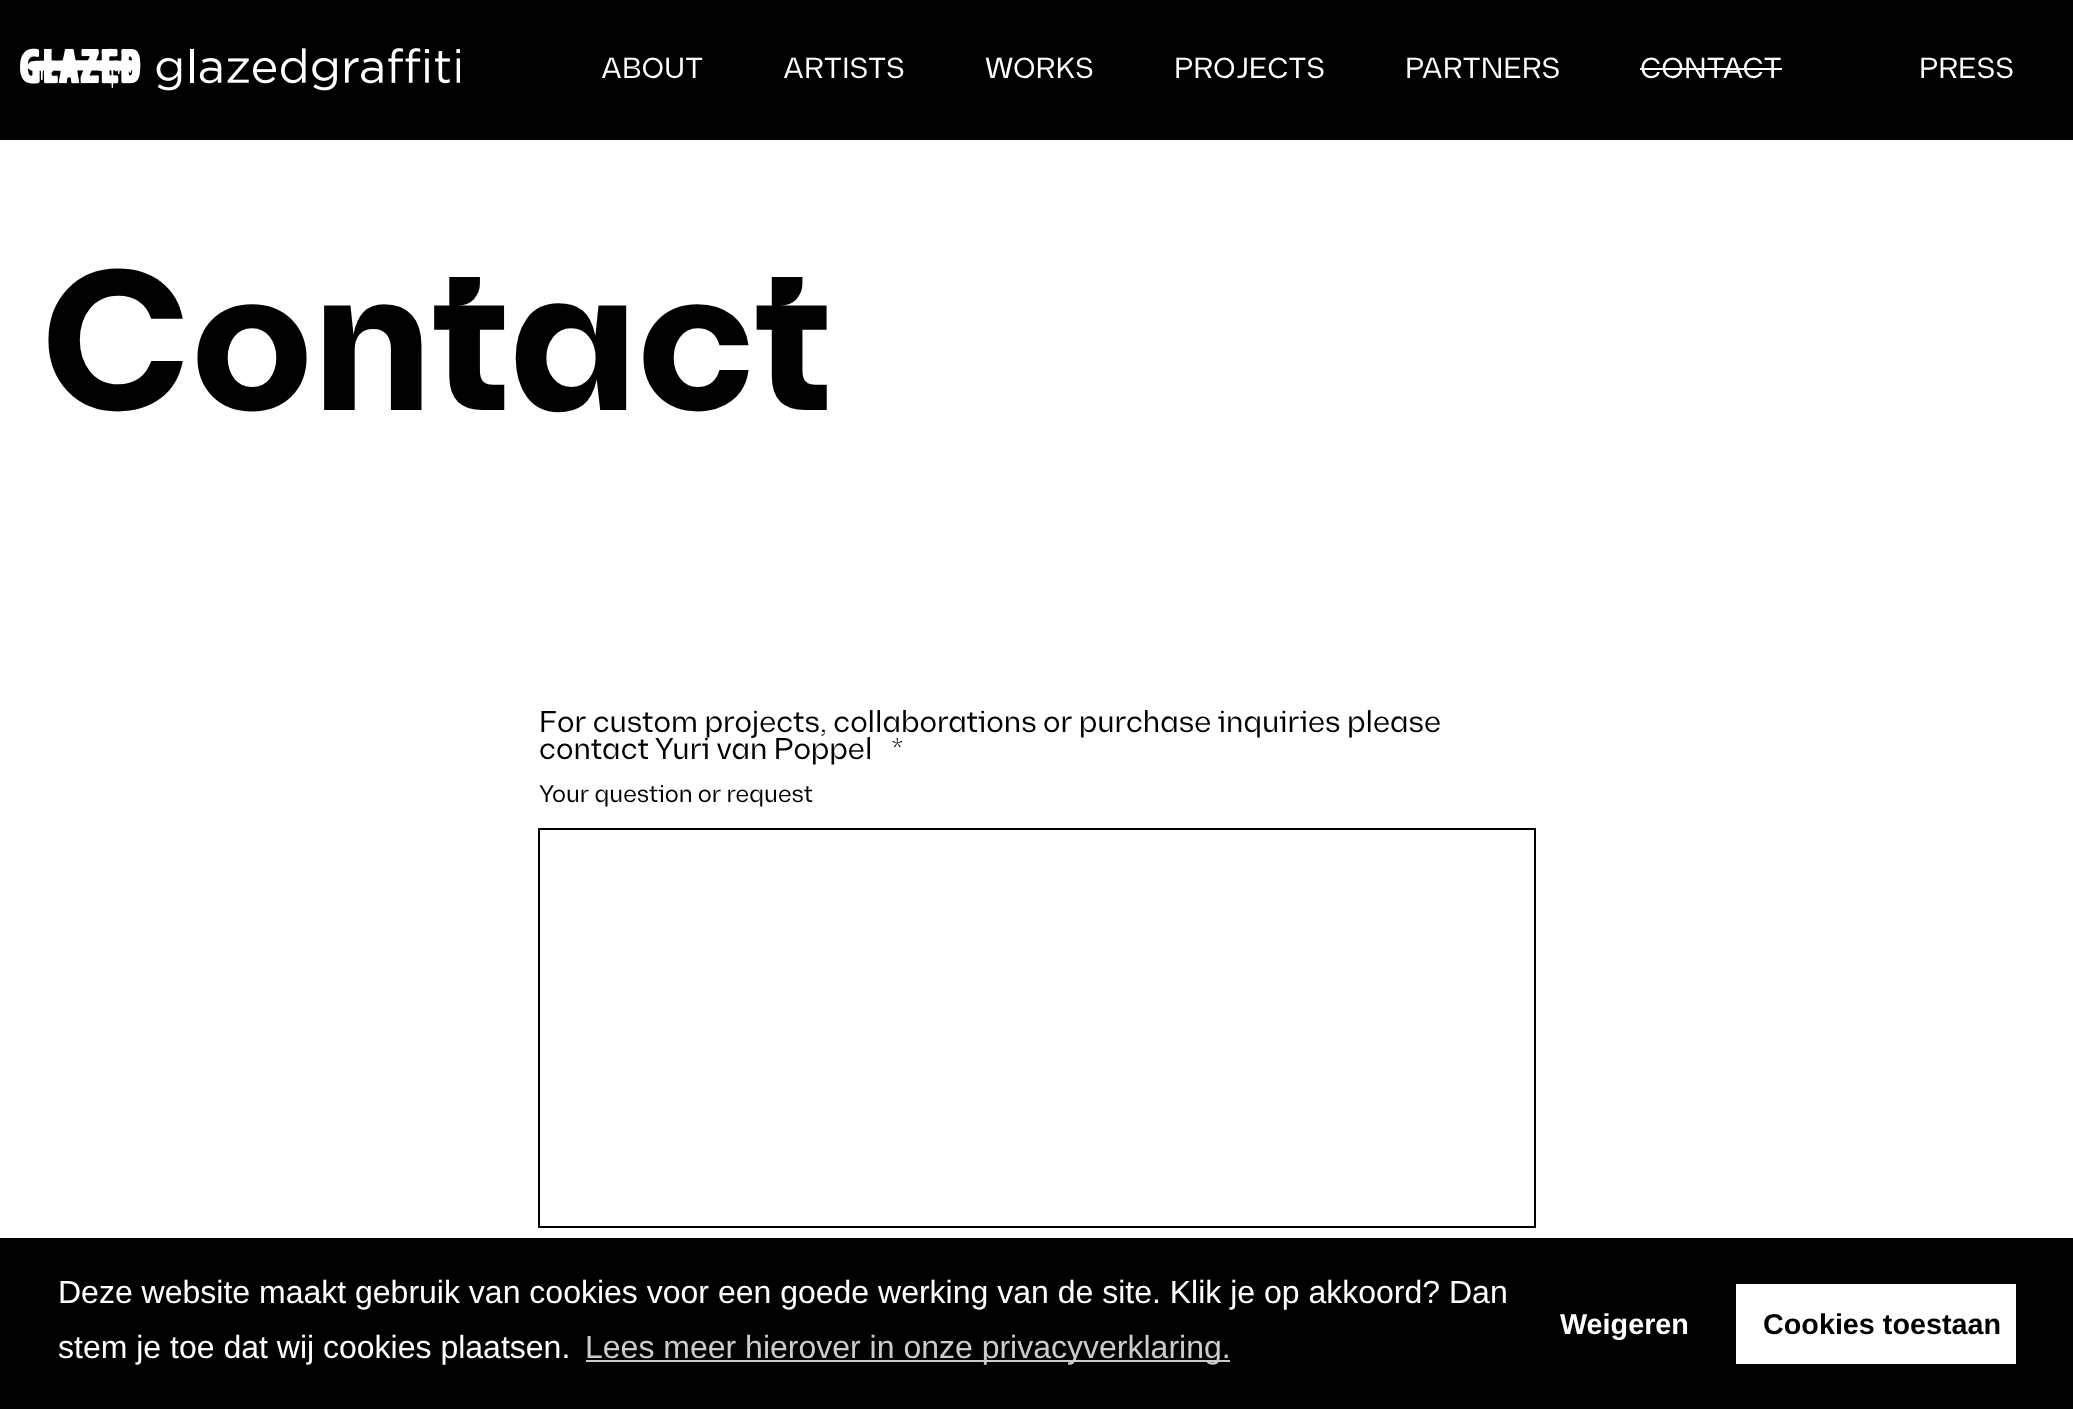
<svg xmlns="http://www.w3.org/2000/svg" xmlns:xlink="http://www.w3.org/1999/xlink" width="2073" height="1409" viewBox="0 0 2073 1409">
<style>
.cls-1{font:29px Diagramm;fill:#ffffff}
.cls-2{font:bold 200px Diagramm;fill:#000000}
.cls-3{font:30px Diagramm;fill:#000000}
.cls-4{font:24px Diagramm;fill:#000000}
.cls-5{font:32px Liberation Sans;fill:#ffffff}
.cls-6{font:32px Liberation Sans;fill:#cccccc}
.cls-7{font:bold 28.75px Liberation Sans;fill:#ffffff}
.cls-8{font:bold 28.75px Liberation Sans;fill:#000000}
</style>
<rect width="100%" height="100%" fill="#ffffff"/>
<rect fill="#000000" x="0" y="0" width="2073" height="140"/>
<image xlink:href="image0.png" x="20" y="48" width="440" height="43"/>
<rect fill="#ffffff" x="1640" y="68" width="142" height="2"/>
<rect fill="none" stroke="#000000" stroke-width="2" x="539" y="829" width="996" height="398"/>
<rect fill="#000000" x="0" y="1238" width="2073" height="171"/>
<rect fill="#cccccc" x="586" y="1360" width="644" height="2"/>
<rect fill="#ffffff" x="1736" y="1284" width="280" height="80"/>
<text class="cls-1" x="601" y="78">ABOUT</text>
<text class="cls-1" x="783" y="78">ARTISTS</text>
<text class="cls-1" x="985" y="78">WORKS</text>
<text class="cls-1" x="1174" y="78">PROJECTS</text>
<text class="cls-1" x="1405" y="78">PARTNERS</text>
<text class="cls-1" x="1640" y="78">CONTACT</text>
<text class="cls-1" x="1919" y="78">PRESS</text>
<text class="cls-2" x="40" y="410">Contact</text>
<text class="cls-3"><tspan x="539" y="732">For custom projects, collaborations or purchase inquiries please</tspan><tspan x="539" y="759">contact Yuri van Poppel</tspan></text>
<text class="cls-3" x="891" y="759">*</text>
<text class="cls-4" x="539" y="802">Your question or request</text>
<text class="cls-5"><tspan x="58" y="1303">Deze website maakt gebruik van cookies voor een goede werking van de site. Klik je op akkoord? Dan</tspan><tspan x="58" y="1358">stem je toe dat wij cookies plaatsen.</tspan></text>
<text class="cls-6" x="585" y="1358">Lees meer hierover in onze privacyverklaring.</text>
<text class="cls-7" x="1560" y="1334">Weigeren</text>
<text class="cls-8" x="1763" y="1334">Cookies toestaan</text>
</svg>
